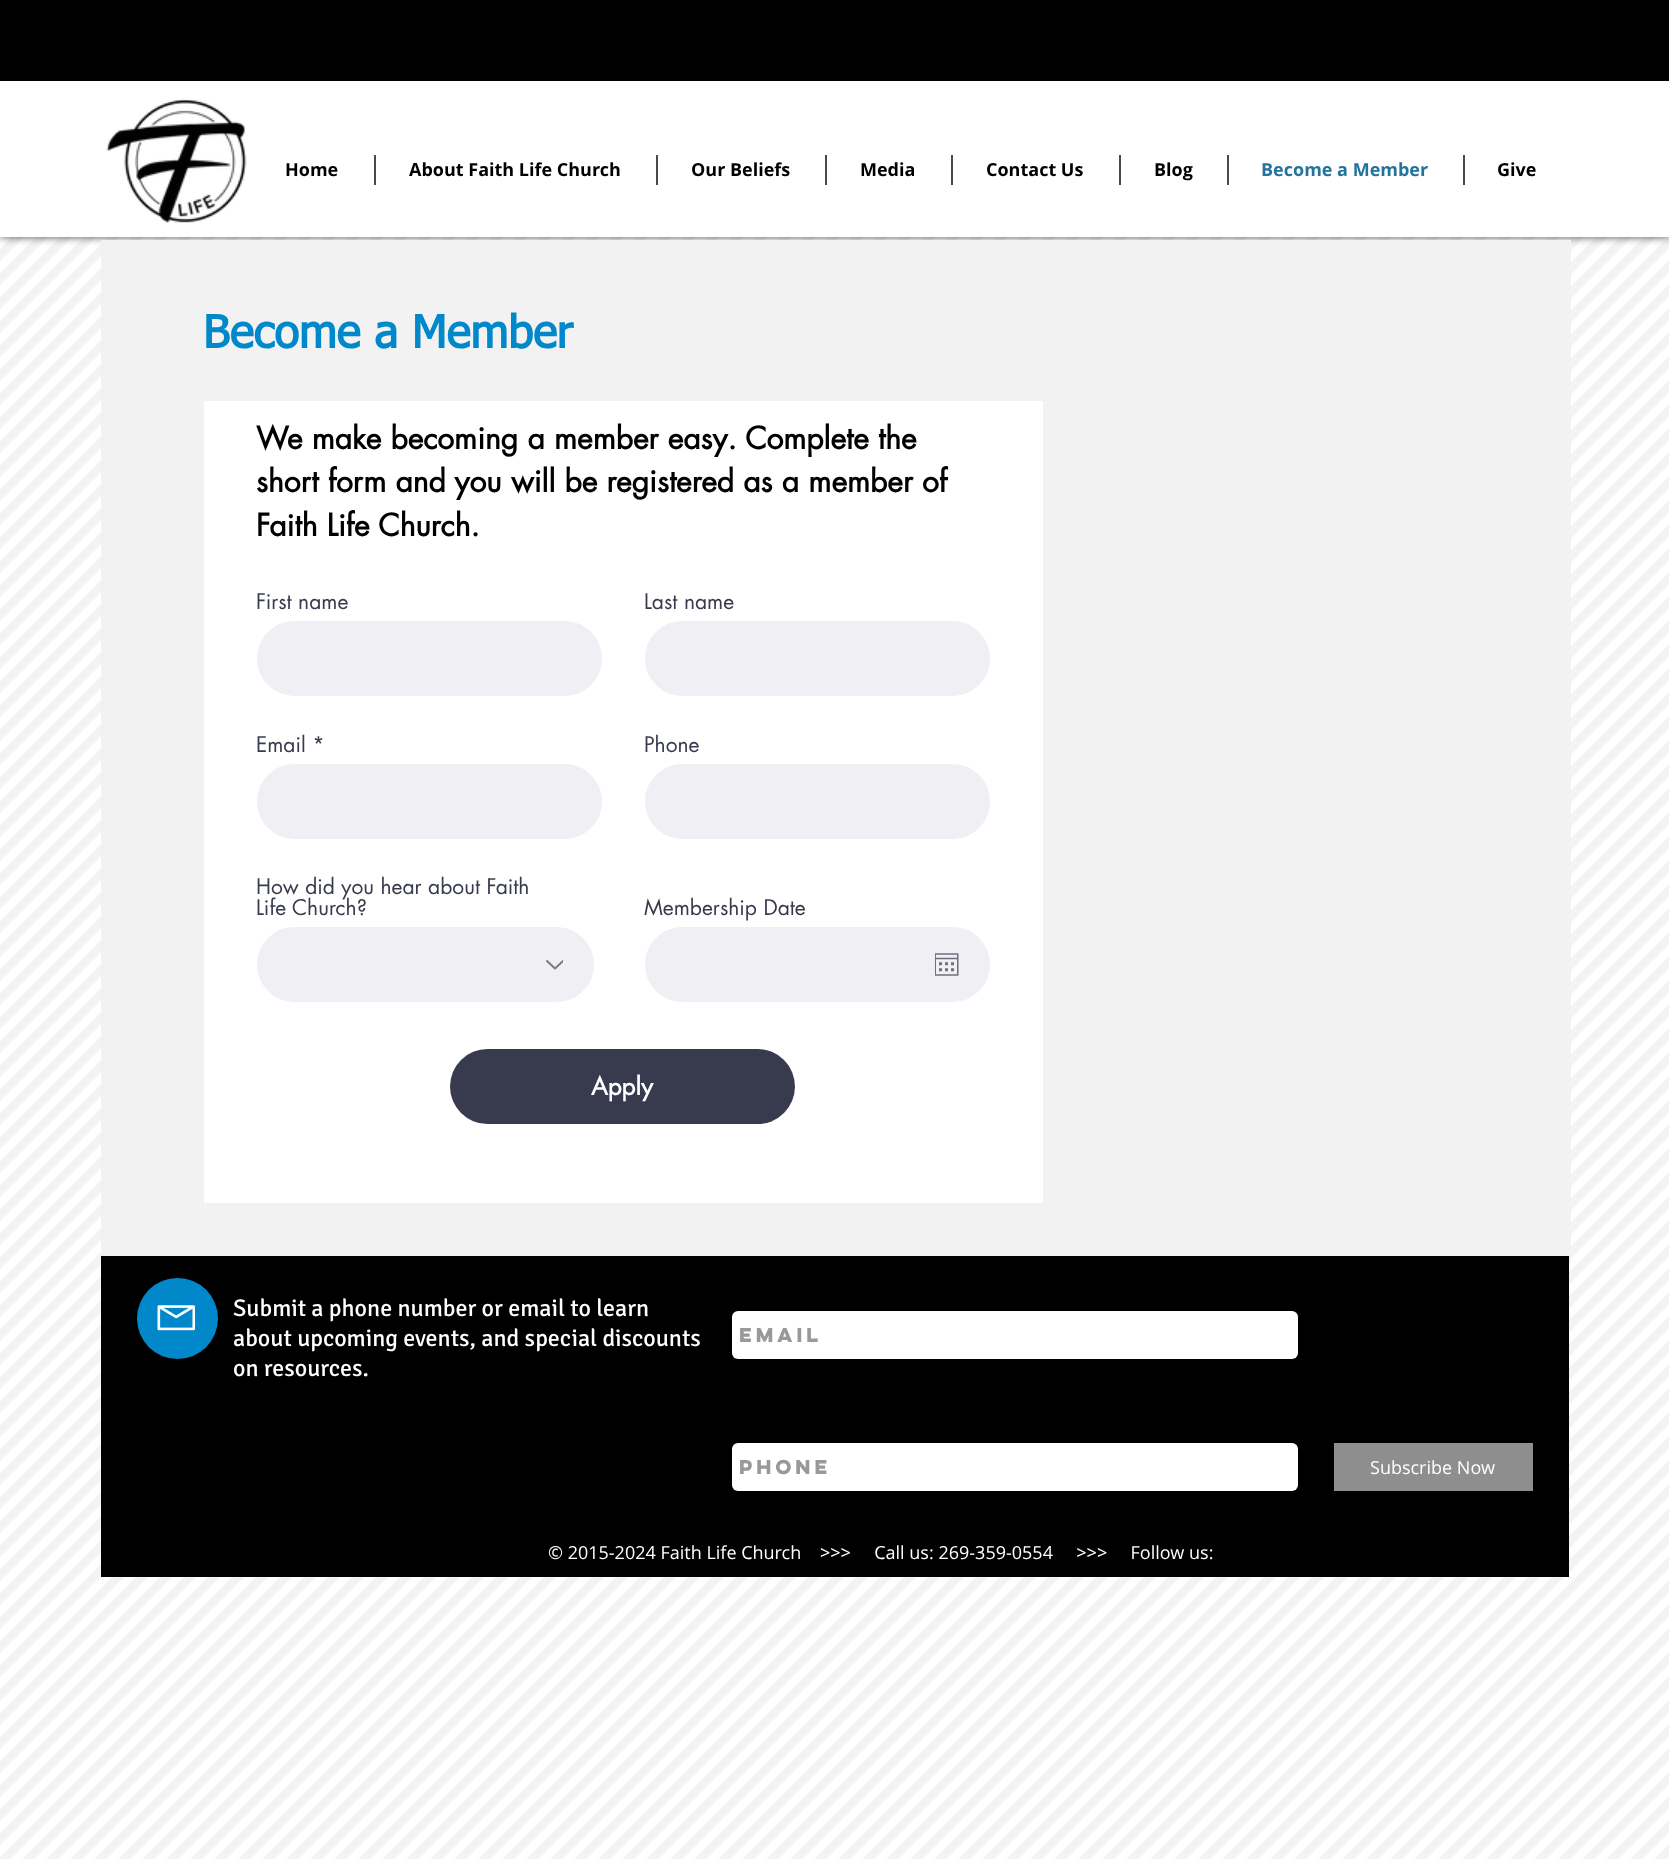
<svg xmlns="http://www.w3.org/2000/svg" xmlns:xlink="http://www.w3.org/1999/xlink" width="1669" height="1859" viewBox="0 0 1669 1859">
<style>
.cls-1{font:bold 18px Open Sans;fill:#000000}
.cls-2{font:bold 18px Open Sans;fill:#23739c}
.cls-3{font:bold 45px tahoma;fill:#0088cb}
.cls-4{font:bold 30px futura;fill:#000000}
.cls-5{font:21px futura;fill:#373b4d}
.cls-6{font:bold 24px futura;fill:#ffffff}
.cls-7{font:24px Signika;fill:#ffffff}
.cls-8{font:bold 18px 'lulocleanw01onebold';fill:#999999}
.cls-9{font:18px Open Sans;fill:#ffffff}
</style>
<defs>
<clipPath id="clip1"><rect x="740" y="1322" width="553" height="27"/></clipPath>
<clipPath id="clip2"><rect x="740" y="1454" width="553" height="27"/></clipPath>
</defs>
<rect width="100%" height="100%" fill="#ffffff"/>
<image xlink:href="image4.png" x="0" y="237" width="1669" height="1622"/>
<rect fill="#000000" fill-opacity="0.7" filter="blur(4px)" x="0" y="0" width="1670" height="237"/>
<rect fill="#ffffff" x="0" y="81" width="1669" height="156"/>
<rect fill="#000000" x="0" y="0" width="1669" height="81"/>
<image xlink:href="image0.png" x="106" y="99" width="141" height="124"/>
<rect fill="#4a4a4a" x="374" y="155" width="2" height="30"/>
<rect fill="#4a4a4a" x="656" y="155" width="2" height="30"/>
<rect fill="#4a4a4a" x="825" y="155" width="2" height="30"/>
<rect fill="#4a4a4a" x="951" y="155" width="2" height="30"/>
<rect fill="#4a4a4a" x="1119" y="155" width="2" height="30"/>
<rect fill="#4a4a4a" x="1227" y="155" width="2" height="30"/>
<rect fill="#4a4a4a" x="1463" y="155" width="2" height="30"/>
<rect fill="#f2f2f2" x="101" y="240" width="1470" height="1023"/>
<rect fill="#ffffff" x="204" y="401" width="839" height="802"/>
<rect fill="#efeff4" stroke="#efeff4" stroke-width="2" x="258" y="622" width="343" height="73" rx="36.5"/>
<rect fill="#efeff4" stroke="#efeff4" stroke-width="2" x="646" y="622" width="343" height="73" rx="36.5"/>
<rect fill="#efeff4" stroke="#efeff4" stroke-width="2" x="258" y="765" width="343" height="73" rx="36.5"/>
<rect fill="#efeff4" stroke="#efeff4" stroke-width="2" x="646" y="765" width="343" height="73" rx="36.5"/>
<rect fill="#efeff4" stroke="#efeff4" stroke-width="2" x="258" y="928" width="335" height="73" rx="36.5"/>
<image xlink:href="image1.png" x="546" y="960" width="17" height="10"/>
<rect fill="#efeff4" stroke="#efeff4" stroke-width="2" x="646" y="928" width="343" height="73" rx="36.5"/>
<image xlink:href="image2.png" x="935" y="953" width="24" height="23"/>
<rect fill="#373b4d" x="450" y="1049" width="345" height="75" rx="37.5"/>
<rect fill="#000000" x="101" y="1256" width="1468" height="321"/>
<circle fill="#0088cb" cx="177.5" cy="1318.5" r="40.5"/>
<image xlink:href="image3.png" x="157" y="1305" width="38" height="26"/>
<rect fill="#ffffff" x="732" y="1311" width="566" height="48" rx="6"/>
<rect fill="#ffffff" x="732" y="1443" width="566" height="48" rx="6"/>
<rect fill="#8e8e8e" x="1334" y="1443" width="199" height="48"/>
<text class="cls-1" x="285" y="176">Home</text>
<text class="cls-1" x="409" y="176">About Faith Life Church</text>
<text class="cls-1" x="691" y="176">Our Beliefs</text>
<text class="cls-1" x="860" y="176">Media</text>
<text class="cls-1" x="986" y="176">Contact Us</text>
<text class="cls-1" x="1154" y="176">Blog</text>
<text class="cls-2" x="1261" y="176">Become a Member</text>
<text class="cls-1" x="1497" y="176">Give</text>
<text class="cls-3" x="203" y="348">Become a Member</text>
<text class="cls-4"><tspan x="256" y="449">We make becoming a member easy. Complete the</tspan><tspan x="256" y="492">short form and you will be registered as a member of</tspan><tspan x="256" y="536">Faith Life Church.</tspan></text>
<text class="cls-5" x="256" y="609">First name</text>
<text class="cls-5" x="644" y="609">Last name</text>
<text class="cls-5" x="256" y="752">Email *</text>
<text class="cls-5" x="644" y="752">Phone</text>
<text class="cls-5"><tspan x="256" y="894">How did you hear about Faith</tspan><tspan x="256" y="915">Life Church?</tspan></text>
<text class="cls-5" x="644" y="915">Membership Date</text>
<text class="cls-6" x="591" y="1095">Apply</text>
<text class="cls-7"><tspan x="233" y="1316">Submit a phone number or email to learn</tspan><tspan x="233" y="1346">about upcoming events, and special discounts</tspan><tspan x="233" y="1376">on resources.</tspan></text>
<g clip-path="url(#clip1)">
<text class="cls-8" x="739" y="1342">Email</text>
</g>
<g clip-path="url(#clip2)">
<text class="cls-8" x="739" y="1474">Phone</text>
</g>
<text class="cls-9" x="1370" y="1474">Subscribe Now</text>
<text class="cls-9" xml:space="preserve" x="548" y="1559">© 2015-2024 Faith Life Church    &gt;&gt;&gt;     Call us: 269-359-0554     &gt;&gt;&gt;     Follow us:</text>
</svg>
